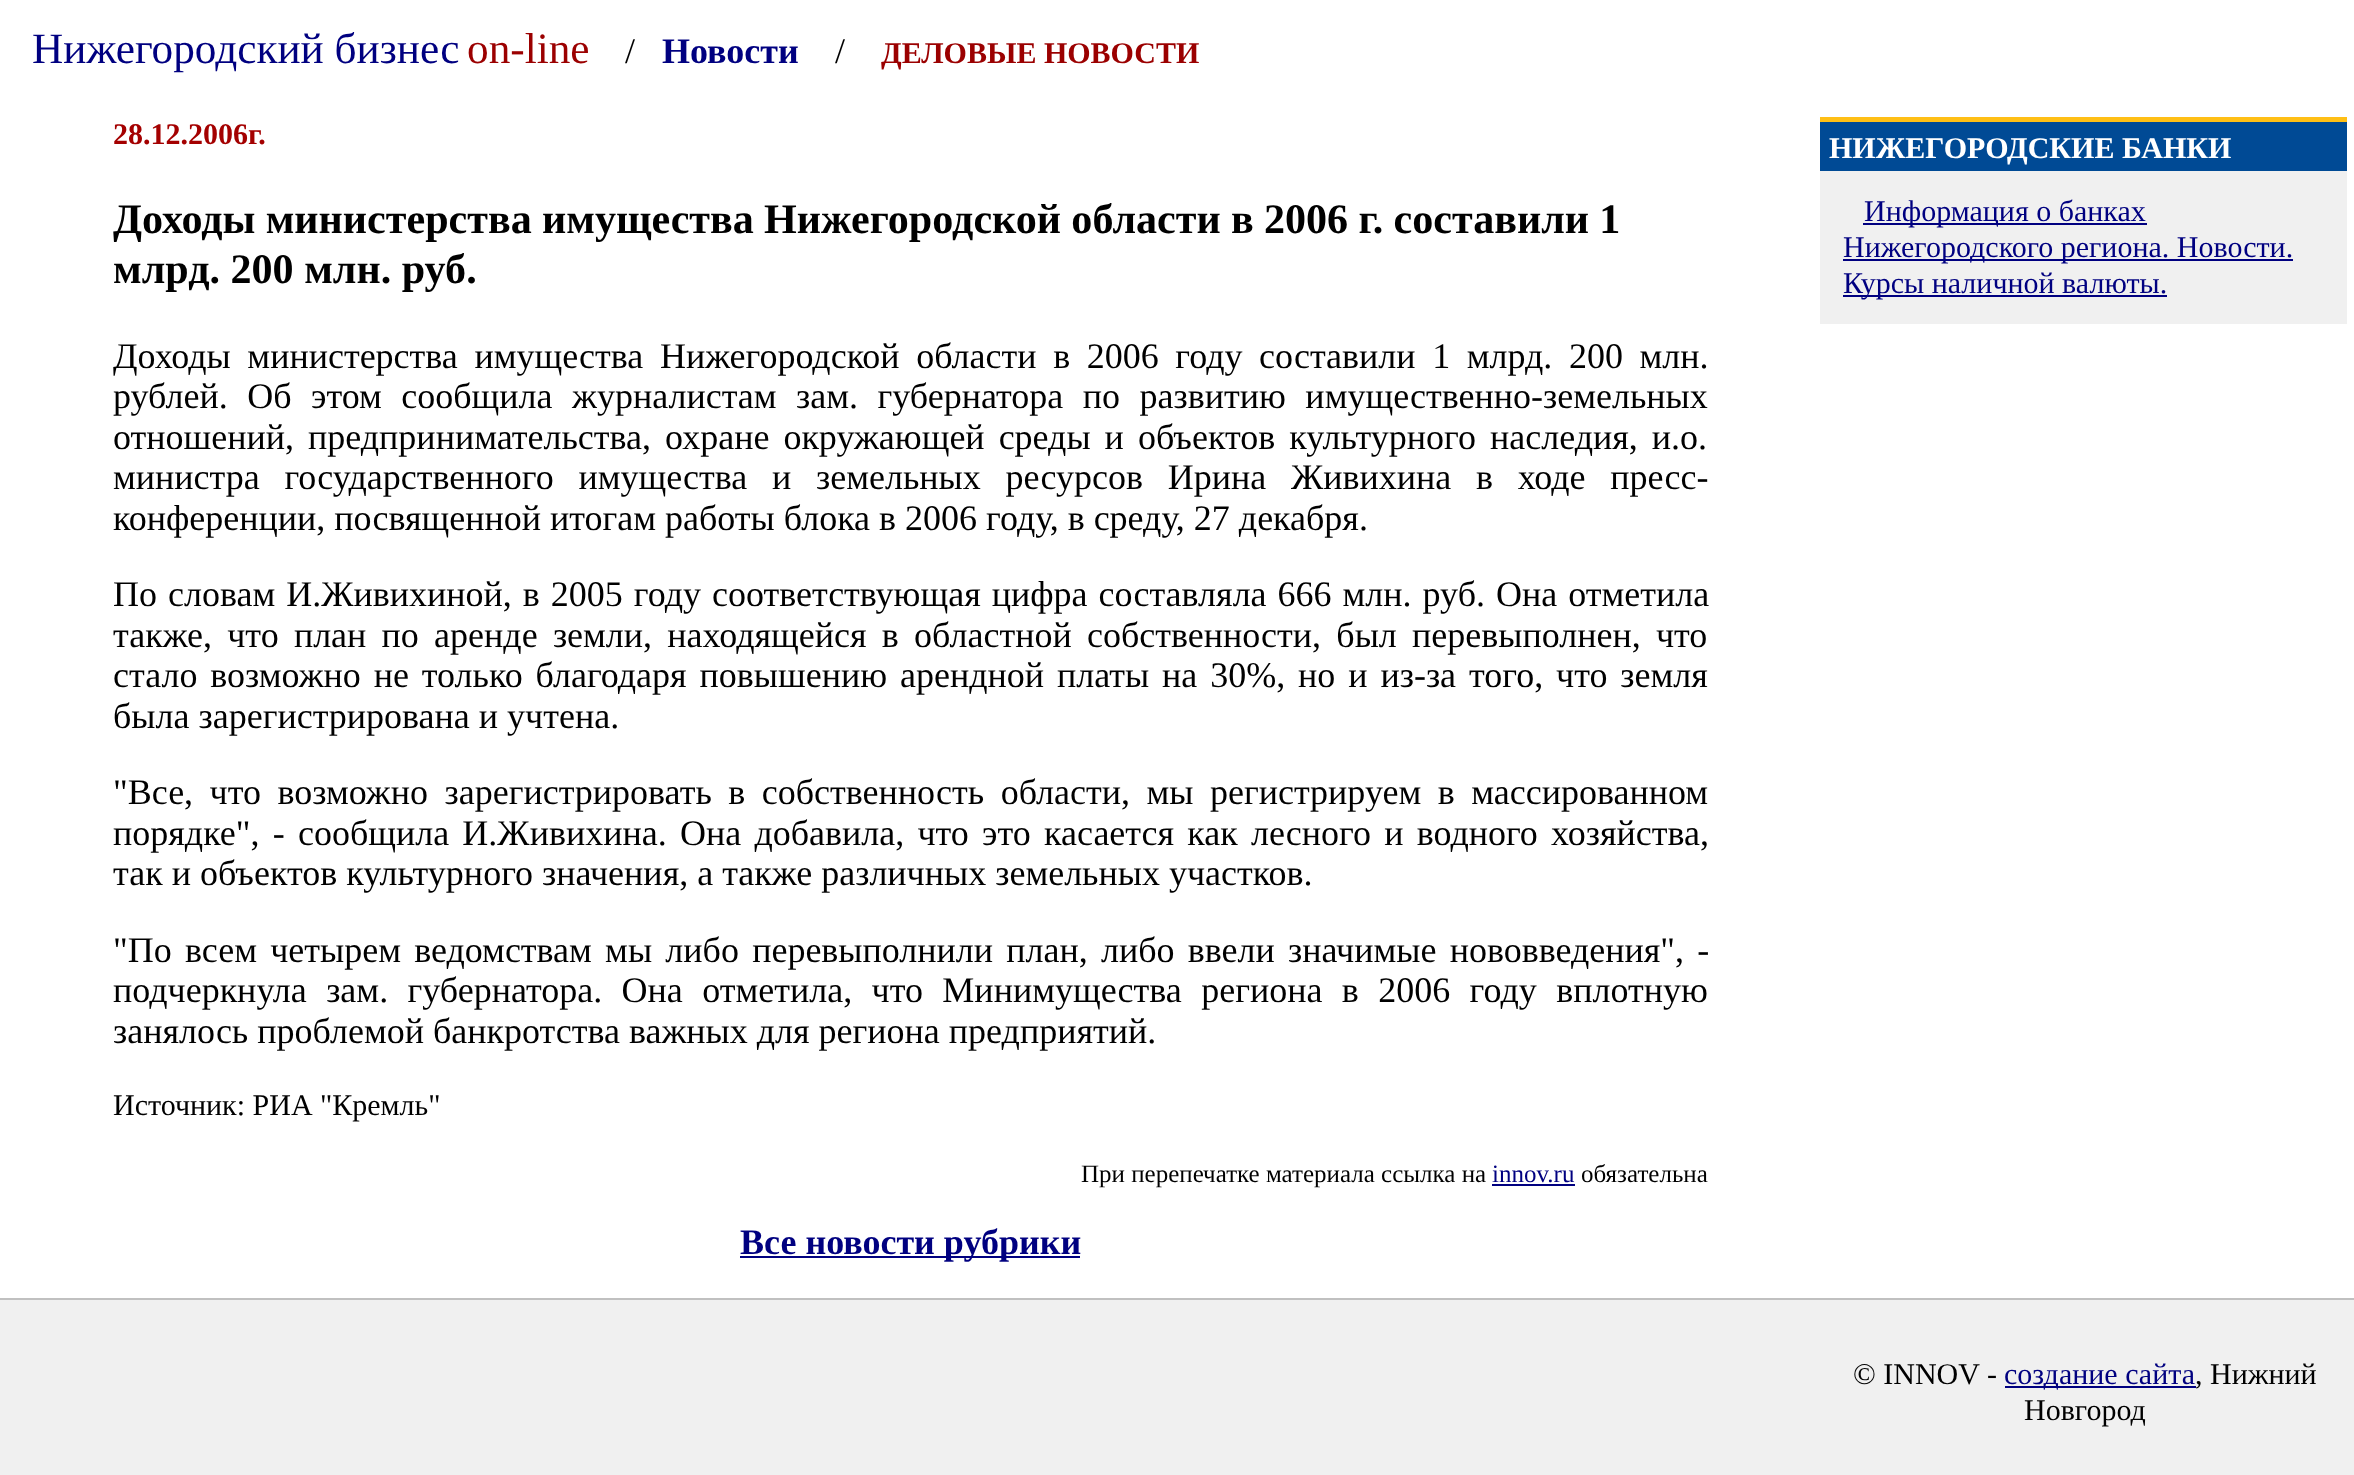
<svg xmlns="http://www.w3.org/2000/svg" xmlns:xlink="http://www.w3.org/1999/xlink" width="2354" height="1475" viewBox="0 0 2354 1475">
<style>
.cls-1{font:43.25px Liberation Serif;fill:#000080}
.cls-2{font:43.25px Liberation Serif;fill:#9b0000}
.cls-3{font:36px Liberation Serif;fill:#000000}
.cls-4{font:bold 36px Liberation Serif;fill:#000080}
.cls-5{font:bold 30px Liberation Serif;fill:#9b0000}
.cls-6{font:bold 30px Liberation Serif;fill:#a40000}
.cls-7{font:bold 42.1px Liberation Serif;fill:#000000}
.cls-8{font:30px Liberation Serif;fill:#000000}
.cls-9{font:25px Liberation Serif;fill:#000000}
.cls-10{font:25px Liberation Serif;fill:#000080}
.cls-11{font:bold 30px Liberation Serif;fill:#ffffff}
.cls-12{font:30px Liberation Serif;fill:#000080}
</style>
<rect width="100%" height="100%" fill="#ffffff"/>
<rect fill="#000080" x="1492" y="1184" width="83" height="2"/>
<rect fill="#000080" x="740" y="1256" width="340" height="2"/>
<rect fill="#ffbf15" x="1820" y="117" width="527" height="5"/>
<rect fill="#004a95" x="1820" y="122" width="527" height="49"/>
<rect fill="#f0f0f0" x="1820" y="171" width="527" height="153"/>
<rect fill="#000080" x="1863" y="223" width="284" height="2"/>
<rect fill="#000080" x="1843" y="259" width="450" height="2"/>
<rect fill="#000080" x="1843" y="295" width="324" height="2"/>
<rect fill="#f0f0f0" x="0" y="1300" width="2354" height="175"/>
<rect fill="#c0c0c0" x="0" y="1298" width="2354" height="2"/>
<rect fill="#000080" x="2005" y="1386" width="191" height="2"/>
<text class="cls-1" x="32" y="63">Нижегородский бизнес</text>
<text class="cls-2" x="467" y="63">on-line</text>
<text class="cls-3" x="625" y="63">/</text>
<text class="cls-4" x="662" y="63">Новости</text>
<text class="cls-3" x="835" y="63">/</text>
<text class="cls-5" x="881" y="63">ДЕЛОВЫЕ НОВОСТИ</text>
<text class="cls-6" x="113" y="144">28.12.2006г.</text>
<text class="cls-7"><tspan x="113" y="233" word-spacing="-0.25">Доходы министерства имущества Нижегородской области в 2006 г. составили 1</tspan><tspan x="113" y="283">млрд. 200 млн. руб.</tspan></text>
<text class="cls-3"><tspan x="113" y="368" word-spacing="7.6">Доходы министерства имущества Нижегородской области в 2006 году составили 1 млрд. 200 млн.</tspan><tspan x="113" y="408" word-spacing="10.5">рублей. Об этом сообщила журналистам зам. губернатора по развитию имущественно-земельных</tspan><tspan x="113" y="449" word-spacing="5">отношений, предпринимательства, охране окружающей среды и объектов культурного наследия, и.о.</tspan><tspan x="113" y="489" word-spacing="15.75">министра государственного имущества и земельных ресурсов Ирина Живихина в ходе пресс-</tspan><tspan x="113" y="530">конференции, посвященной итогам работы блока в 2006 году, в среду, 27 декабря.</tspan></text>
<text class="cls-3"><tspan x="113" y="606" word-spacing="2">По словам И.Живихиной, в 2005 году соответствующая цифра составляла 666 млн. руб. Она отметила</tspan><tspan x="113" y="647" word-spacing="6.25">также, что план по аренде земли, находящейся в областной собственности, был перевыполнен, что</tspan><tspan x="113" y="687" word-spacing="3.9">стало возможно не только благодаря повышению арендной платы на 30%, но и из-за того, что земля</tspan><tspan x="113" y="728">была зарегистрирована и учтена.</tspan></text>
<text class="cls-3"><tspan x="113" y="804" word-spacing="7.5">"Все, что возможно зарегистрировать в собственность области, мы регистрируем в массированном</tspan><tspan x="113" y="845" word-spacing="4.25">порядке", - сообщила И.Живихина. Она добавила, что это касается как лесного и водного хозяйства,</tspan><tspan x="113" y="885">так и объектов культурного значения, а также различных земельных участков.</tspan></text>
<text class="cls-3"><tspan x="113" y="962" word-spacing="4.25">"По всем четырем ведомствам мы либо перевыполнили план, либо ввели значимые нововведения", -</tspan><tspan x="113" y="1002" word-spacing="10.4">подчеркнула зам. губернатора. Она отметила, что Минимущества региона в 2006 году вплотную</tspan><tspan x="113" y="1043">занялось проблемой банкротства важных для региона предприятий.</tspan></text>
<text class="cls-8" x="113" y="1115">Источник: РИА "Кремль"</text>
<text class="cls-9" x="1081" y="1182">При перепечатке материала ссылка на</text>
<text class="cls-10" x="1492" y="1182">innov.ru</text>
<text class="cls-9" x="1581" y="1182">обязательна</text>
<text class="cls-4" x="740" y="1254">Все новости рубрики</text>
<text class="cls-11" x="1829" y="158">НИЖЕГОРОДСКИЕ БАНКИ</text>
<text class="cls-12" x="1864" y="221">Информация о банках</text>
<text class="cls-12"><tspan x="1843" y="257">Нижегородского региона. Новости.</tspan><tspan x="1843" y="293">Курсы наличной валюты.</tspan></text>
<text class="cls-8" x="1853" y="1384">© INNOV -</text>
<text class="cls-12" x="2004" y="1384">создание сайта</text>
<text class="cls-8" x="2195" y="1384">, Нижний</text>
<text class="cls-8" x="2024" y="1420">Новгород</text>
</svg>
